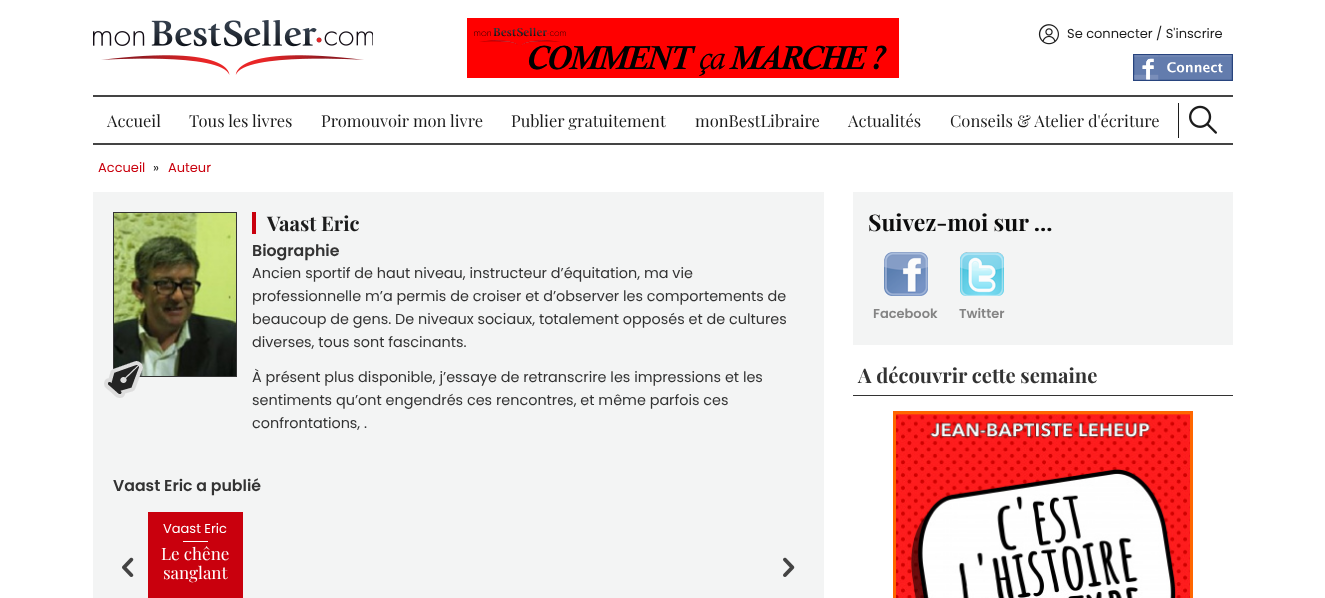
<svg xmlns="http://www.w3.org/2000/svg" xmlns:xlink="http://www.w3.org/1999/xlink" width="1325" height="598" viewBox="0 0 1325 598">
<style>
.cls-1{font:13px Poppins;fill:#1c1c1c}
.cls-2{font:16.5px Playfair Display;fill:#1c1c1c}
.cls-3{font:13px Poppins;fill:#c9000d}
.cls-4{font:bold 20.2px Playfair Display;fill:#1c1c1c}
.cls-5{font:600 15.75px Poppins;fill:#333333}
.cls-6{font:14.4px Poppins;fill:#333333}
.cls-7{font:13px Poppins;fill:#ffffff}
.cls-8{font:17px Playfair Display;fill:#ffffff}
.cls-9{font:bold 23px Playfair Display;fill:#0c0c0c}
.cls-10{font:600 13px Poppins;fill:#848484}
.cls-11{font:bold 20.2px Playfair Display;fill:#333333}
</style>
<rect width="100%" height="100%" fill="#ffffff"/>
<image xlink:href="image0.png" x="93" y="20" width="280" height="55"/>
<image xlink:href="image1.png" x="467" y="18" width="432" height="60"/>
<image xlink:href="image2.png" x="1038" y="24" width="21" height="21"/>
<image xlink:href="image3.png" x="1133" y="54" width="100" height="27"/>
<rect fill="#444444" x="93" y="95" width="1140" height="2"/>
<rect fill="#444444" x="93" y="143" width="1140" height="2"/>
<rect fill="#1c1c1c" x="1178" y="103" width="1" height="35"/>
<image xlink:href="image4.png" x="1189" y="105" width="28" height="29"/>
<rect fill="#f3f4f4" x="93" y="192" width="731" height="406"/>
<rect fill="none" stroke="#333333" x="113.5" y="212.5" width="123" height="164"/>
<image xlink:href="image5.png" x="114" y="213" width="122" height="163"/>
<image xlink:href="image6.png" x="104" y="361" width="39" height="37"/>
<rect fill="#c9000d" x="252" y="212" width="4" height="22"/>
<image xlink:href="image7.png" x="122" y="557" width="12" height="20"/>
<rect fill="#c9000d" x="148" y="512" width="95" height="86"/>
<rect fill="#ffffff" x="183" y="541" width="25" height="1"/>
<image xlink:href="image8.png" x="783" y="557" width="12" height="20"/>
<rect fill="#f3f4f4" x="853" y="192" width="380" height="153"/>
<image xlink:href="image9.png" x="884" y="252" width="44" height="44"/>
<image xlink:href="image10.png" x="960" y="252" width="44" height="44"/>
<rect fill="#333333" x="853" y="395" width="380" height="1"/>
<rect fill="#ff6600" x="893" y="411" width="300" height="187"/>
<image xlink:href="image11.png" x="896" y="414" width="294" height="184"/>
<text class="cls-1" x="1067" y="38">Se connecter / S'inscrire</text>
<text class="cls-2" x="107" y="127">Accueil</text>
<text class="cls-2" x="189" y="127">Tous les livres</text>
<text class="cls-2" x="321" y="127">Promouvoir mon livre</text>
<text class="cls-2" x="511" y="127">Publier gratuitement</text>
<text class="cls-2" x="695" y="127">monBestLibraire</text>
<text class="cls-2" x="848" y="127">Actualités</text>
<text class="cls-2" x="950" y="127">Conseils &amp; Atelier d'écriture</text>
<text class="cls-3" x="98" y="172">Accueil</text>
<text class="cls-1" x="153" y="172">»</text>
<text class="cls-3" x="168" y="172">Auteur</text>
<text class="cls-4" x="267" y="231">Vaast Eric</text>
<text class="cls-5" x="252" y="256">Biographie</text>
<text class="cls-6"><tspan x="252" y="278">Ancien sportif de haut niveau, instructeur d’équitation, ma vie</tspan><tspan x="252" y="301">professionnelle m’a permis de croiser et d’observer les comportements de</tspan><tspan x="252" y="324">beaucoup de gens. De niveaux sociaux, totalement opposés et de cultures</tspan><tspan x="252" y="347">diverses, tous sont fascinants.</tspan></text>
<text class="cls-6"><tspan x="252" y="382">À présent plus disponible, j’essaye de retranscrire les impressions et les</tspan><tspan x="252" y="405">sentiments qu’ont engendrés ces rencontres, et même parfois ces</tspan><tspan x="252" y="428">confrontations, .</tspan></text>
<text class="cls-5" x="113" y="491">Vaast Eric a publié</text>
<text class="cls-7" x="163" y="533">Vaast Eric</text>
<text class="cls-8" x="161" y="560">Le chêne</text>
<text class="cls-8" x="163" y="579">sanglant</text>
<text class="cls-9" x="868" y="231">Suivez-moi sur ...</text>
<text class="cls-10" x="873" y="318">Facebook</text>
<text class="cls-10" x="959" y="318">Twitter</text>
<text class="cls-11" x="858" y="383">A découvrir cette semaine</text>
</svg>
